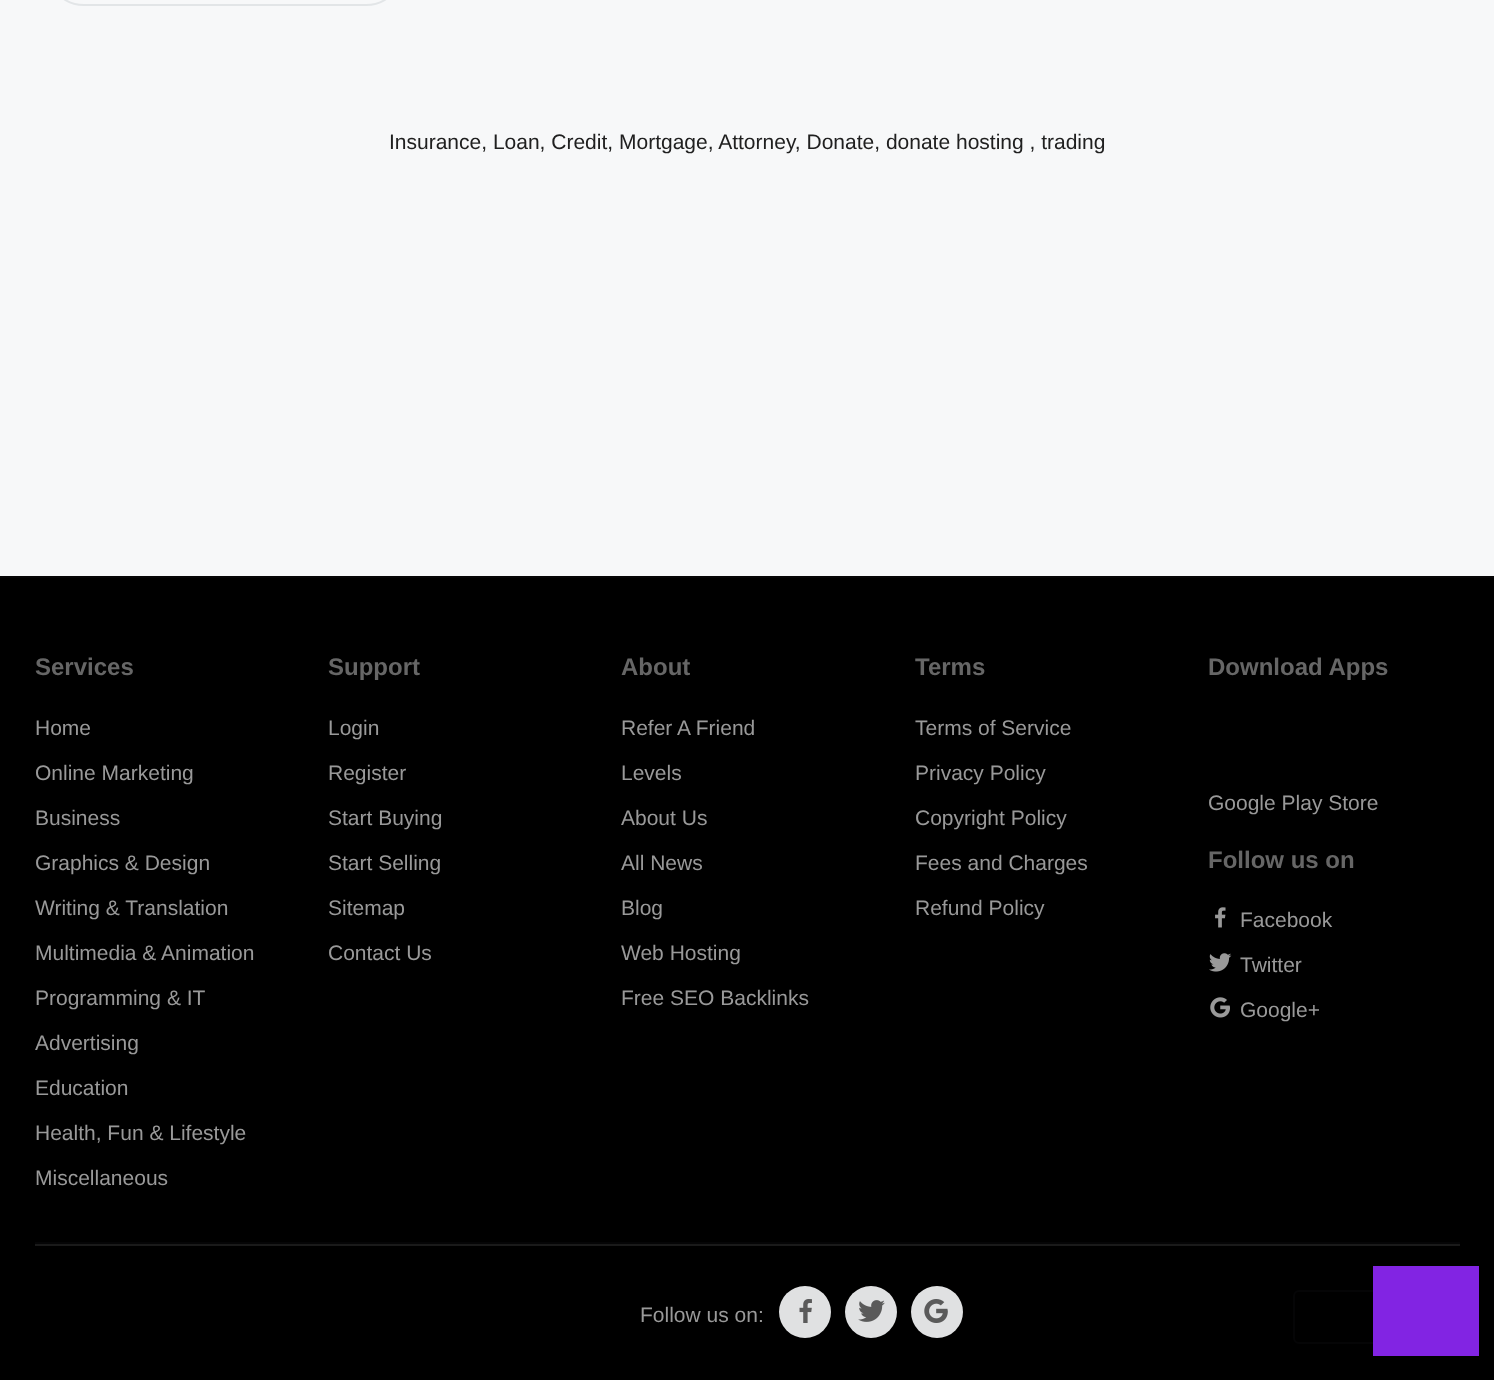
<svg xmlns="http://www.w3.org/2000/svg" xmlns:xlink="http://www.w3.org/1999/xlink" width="1494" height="1380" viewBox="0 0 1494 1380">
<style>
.cls-1{font:21px Liberation Sans;fill:#202020}
.cls-2{font:bold 24px Liberation Sans;fill:#666666}
.cls-3{font:21px Liberation Sans;fill:#999999}
</style>
<rect width="100%" height="100%" fill="#f7f8f9"/>
<rect fill="none" stroke="#e2e5e7" stroke-width="2" x="58" y="-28" width="334" height="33" rx="26"/>
<rect fill="#000000" x="0" y="578" width="1494" height="802"/>
<rect fill="#050506" x="0" y="576" width="1494" height="2"/>
<image xlink:href="image0.png" x="1215" y="907" width="11" height="21"/>
<image xlink:href="image1.png" x="1209" y="953" width="23" height="19"/>
<image xlink:href="image2.png" x="1210" y="997" width="20" height="21"/>
<rect fill="#050506" x="35" y="1242" width="1425" height="2"/>
<rect fill="#1a1a1a" x="35" y="1244" width="1425" height="2"/>
<circle fill="#e0e1e2" cx="805" cy="1312" r="26"/>
<image xlink:href="image3.png" x="799" y="1299" width="13" height="24"/>
<circle fill="#e0e1e2" cx="871" cy="1312" r="26"/>
<image xlink:href="image4.png" x="858" y="1300" width="27" height="22"/>
<circle fill="#e0e1e2" cx="937" cy="1312" r="26"/>
<image xlink:href="image5.png" x="924" y="1299" width="24" height="24"/>
<rect fill="none" stroke="#050506" stroke-width="2" x="1294" y="1291" width="159" height="52" rx="5"/>
<rect fill="#8224e3" x="1373" y="1266" width="106" height="90"/>
<text class="cls-1" x="389" y="149">Insurance, Loan, Credit, Mortgage, Attorney, Donate, donate hosting , trading</text>
<text class="cls-2" x="35" y="675">Services</text>
<text class="cls-3" x="35" y="735">Home</text>
<text class="cls-3" x="35" y="780">Online Marketing</text>
<text class="cls-3" x="35" y="825">Business</text>
<text class="cls-3" x="35" y="870">Graphics &amp; Design</text>
<text class="cls-3" x="35" y="915">Writing &amp; Translation</text>
<text class="cls-3" x="35" y="960">Multimedia &amp; Animation</text>
<text class="cls-3" x="35" y="1005">Programming &amp; IT</text>
<text class="cls-3" x="35" y="1050">Advertising</text>
<text class="cls-3" x="35" y="1095">Education</text>
<text class="cls-3" x="35" y="1140">Health, Fun &amp; Lifestyle</text>
<text class="cls-3" x="35" y="1185">Miscellaneous</text>
<text class="cls-2" x="328" y="675">Support</text>
<text class="cls-3" x="328" y="735">Login</text>
<text class="cls-3" x="328" y="780">Register</text>
<text class="cls-3" x="328" y="825">Start Buying</text>
<text class="cls-3" x="328" y="870">Start Selling</text>
<text class="cls-3" x="328" y="915">Sitemap</text>
<text class="cls-3" x="328" y="960">Contact Us</text>
<text class="cls-2" x="621" y="675">About</text>
<text class="cls-3" x="621" y="735">Refer A Friend</text>
<text class="cls-3" x="621" y="780">Levels</text>
<text class="cls-3" x="621" y="825">About Us</text>
<text class="cls-3" x="621" y="870">All News</text>
<text class="cls-3" x="621" y="915">Blog</text>
<text class="cls-3" x="621" y="960">Web Hosting</text>
<text class="cls-3" x="621" y="1005">Free SEO Backlinks</text>
<text class="cls-2" x="915" y="675">Terms</text>
<text class="cls-3" x="915" y="735">Terms of Service</text>
<text class="cls-3" x="915" y="780">Privacy Policy</text>
<text class="cls-3" x="915" y="825">Copyright Policy</text>
<text class="cls-3" x="915" y="870">Fees and Charges</text>
<text class="cls-3" x="915" y="915">Refund Policy</text>
<text class="cls-2" x="1208" y="675">Download Apps</text>
<text class="cls-3" x="1208" y="810">Google Play Store</text>
<text class="cls-2" x="1208" y="868">Follow us on</text>
<text class="cls-3" x="1240" y="927">Facebook</text>
<text class="cls-3" x="1240" y="972">Twitter</text>
<text class="cls-3" x="1240" y="1017">Google+</text>
<text class="cls-3" x="640" y="1322">Follow us on:</text>
</svg>
